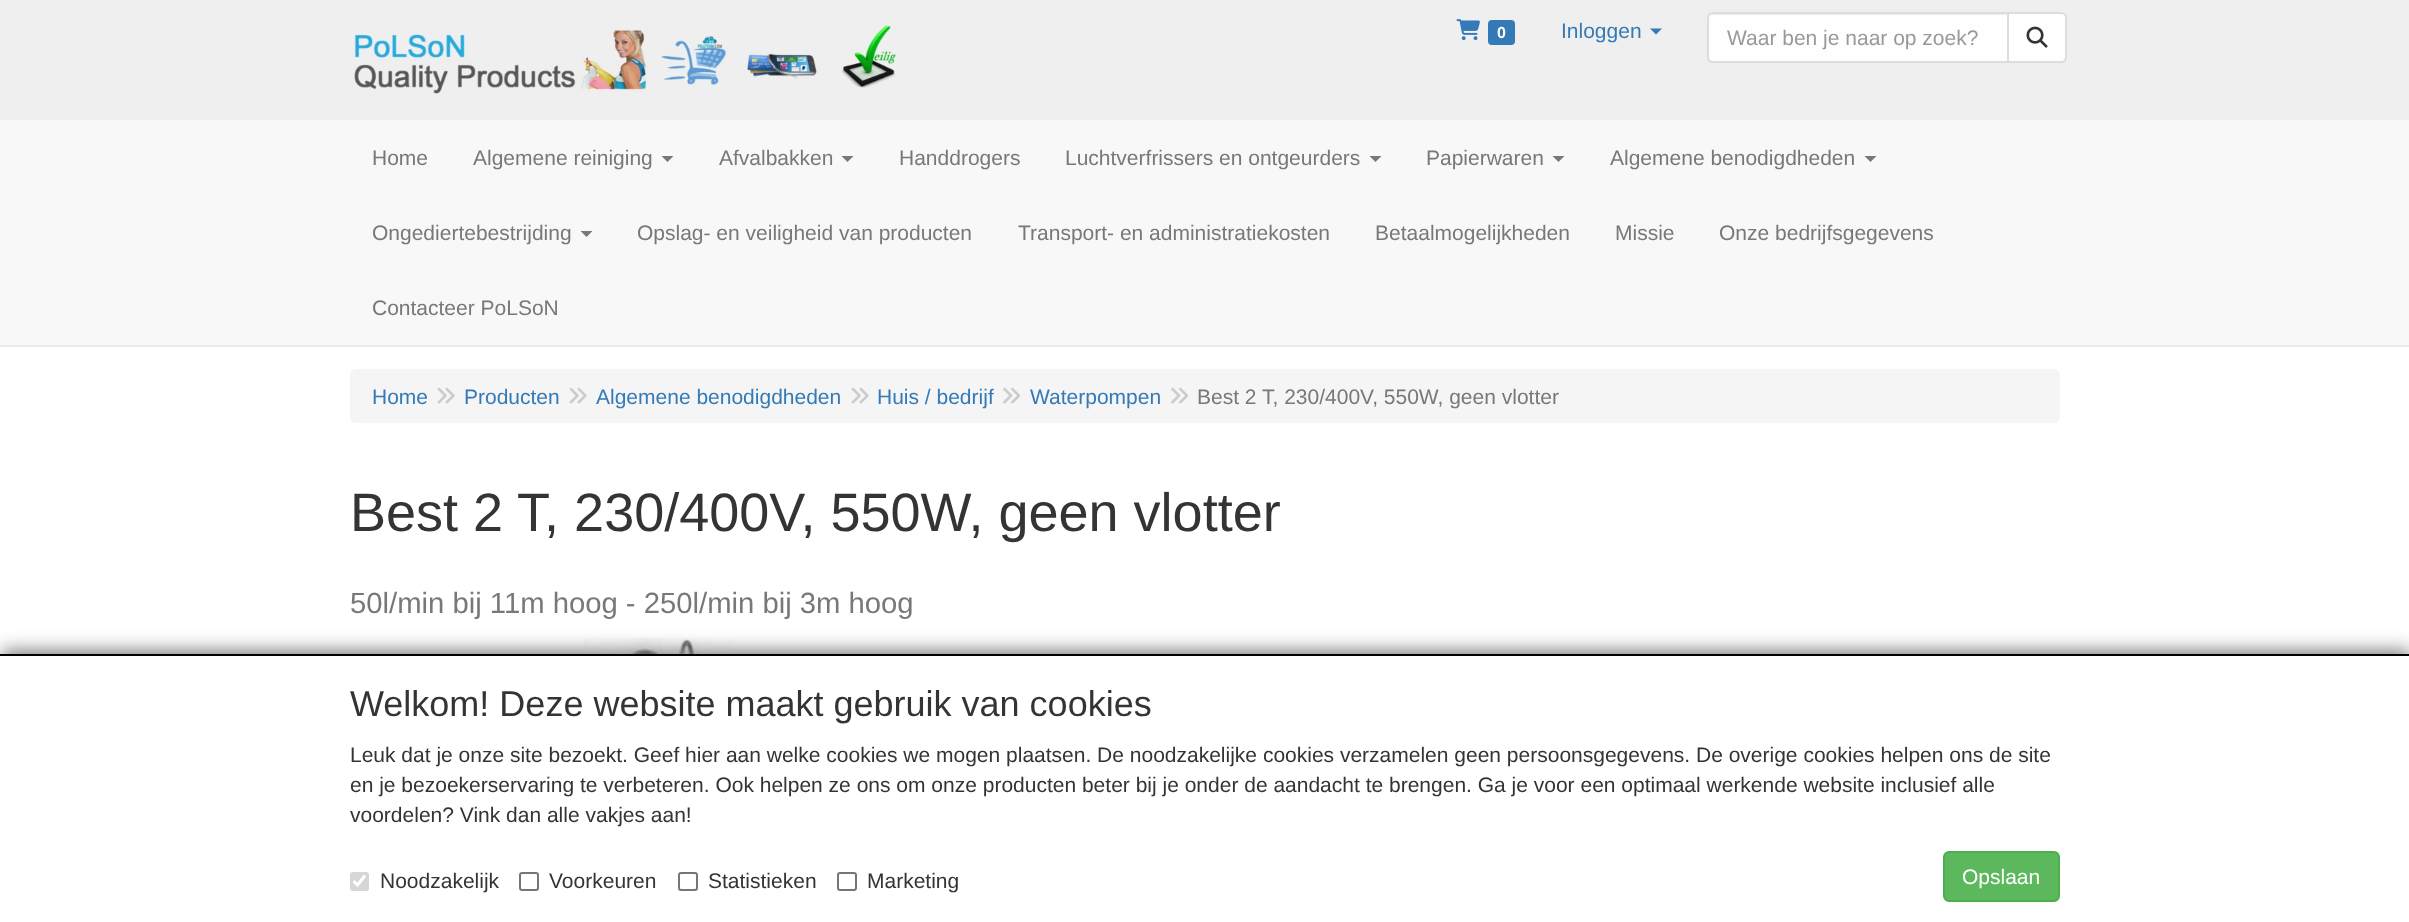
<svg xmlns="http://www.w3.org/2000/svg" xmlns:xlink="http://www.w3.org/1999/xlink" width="2409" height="922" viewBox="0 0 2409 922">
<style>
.cls-1{font:bold 16px Liberation Sans;fill:#ffffff}
.cls-2{font:21px Liberation Sans;fill:#337ab7}
.cls-3{font:21px Liberation Sans;fill:#999999}
.cls-4{font:21px Liberation Sans;fill:#787878}
.cls-5{font:54px Liberation Sans;fill:#343434}
.cls-6{font:29.25px Liberation Sans;fill:#787878}
.cls-7{font:36px Liberation Sans;fill:#343434}
.cls-8{font:21px Liberation Sans;fill:#343434}
.cls-9{font:21px Liberation Sans;fill:#ffffff}
</style>
<rect width="100%" height="100%" fill="#ffffff"/>
<rect fill="#efefef" x="0" y="0" width="2409" height="120"/>
<image xlink:href="image0.png" x="354" y="25" width="544" height="69"/>
<image xlink:href="image1.png" x="1456" y="19" width="24" height="22"/>
<rect fill="#337ab7" x="1488" y="20" width="27" height="25" rx="4"/>
<path fill="#337ab7" d="M1650 28.5H1662L1656 34.5Z"/>
<path fill="#fefefe" d="M1713 12H2009V63H1713C1709.5 63 1707 60.5 1707 57V18C1707 14.5 1709.5 12 1713 12Z"/>
<path fill="#ebebeb" d="M1713 15H2007V14H1714C1712 14 1711 15 1710 16Z"/>
<path fill="none" stroke="#dddddd" stroke-width="2" d="M1713 13H2008V62H1713C1710 62 1708 60 1708 57V18C1708 15 1710 13 1713 13Z"/>
<path fill="#fefefe" stroke="#dddddd" stroke-width="2" d="M2008 13H2061C2064 13 2066 15 2066 18V57C2066 60 2064 62 2061 62H2008Z"/>
<image xlink:href="image2.png" x="2026" y="26" width="22" height="22"/>
<rect fill="#f8f8f8" x="0" y="120" width="2409" height="225"/>
<rect fill="#ebebeb" x="0" y="345" width="2409" height="2"/>
<path fill="#787878" d="M661.5 156H673.5L667.5 162Z"/>
<path fill="#787878" d="M841.5 156H853.5L847.5 162Z"/>
<path fill="#787878" d="M1369.5 156H1381.5L1375.5 162Z"/>
<path fill="#787878" d="M1552.5 156H1564.5L1558.5 162Z"/>
<path fill="#787878" d="M1864.5 156H1876.5L1870.5 162Z"/>
<path fill="#787878" d="M580.5 231H592.5L586.5 237Z"/>
<rect fill="#f5f5f5" x="350" y="369" width="1710" height="54" rx="6"/>
<image xlink:href="image3.png" x="437" y="387" width="18" height="17"/>
<image xlink:href="image3.png" x="569" y="387" width="18" height="17"/>
<image xlink:href="image3.png" x="851" y="387" width="18" height="17"/>
<image xlink:href="image4.png" x="1003" y="387" width="18" height="17"/>
<image xlink:href="image4.png" x="1171" y="387" width="18" height="17"/>
<image xlink:href="image5.png" x="584" y="638" width="149" height="16"/>
<rect fill="#808080" filter="blur(9px)" x="2" y="650" width="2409" height="268"/>
<rect fill="#ffffff" x="0" y="656" width="2409" height="266"/>
<rect fill="#000000" x="0" y="654" width="2409" height="2"/>
<rect fill="#d6d6d6" x="350" y="872" width="19" height="19" rx="3"/>
<path fill="none" stroke="#ffffff" stroke-width="3.1" d="M353.5 881L357.5 885L365 875.5"/>
<rect fill="none" stroke="#767676" stroke-width="2" x="520" y="873" width="18" height="17" rx="2"/>
<rect fill="none" stroke="#767676" stroke-width="2" x="679" y="873" width="18" height="17" rx="2"/>
<rect fill="none" stroke="#767676" stroke-width="2" x="838" y="873" width="18" height="17" rx="2"/>
<rect fill="#5cb85c" stroke="#4cae4c" stroke-width="2" x="1944" y="852" width="115" height="49" rx="5"/>
<text class="cls-1" x="1497" y="38">0</text>
<text class="cls-2" x="1561" y="38">Inloggen</text>
<text class="cls-3" x="1727" y="45">Waar ben je naar op zoek?</text>
<text class="cls-4" x="372" y="165">Home</text>
<text class="cls-4" x="473" y="165">Algemene reiniging</text>
<text class="cls-4" x="719" y="165">Afvalbakken</text>
<text class="cls-4" x="899" y="165">Handdrogers</text>
<text class="cls-4" x="1065" y="165">Luchtverfrissers en ontgeurders</text>
<text class="cls-4" x="1426" y="165">Papierwaren</text>
<text class="cls-4" x="1610" y="165">Algemene benodigdheden</text>
<text class="cls-4" x="372" y="240">Ongediertebestrijding</text>
<text class="cls-4" x="637" y="240">Opslag- en veiligheid van producten</text>
<text class="cls-4" x="1018" y="240">Transport- en administratiekosten</text>
<text class="cls-4" x="1375" y="240">Betaalmogelijkheden</text>
<text class="cls-4" x="1615" y="240">Missie</text>
<text class="cls-4" x="1719" y="240">Onze bedrijfsgegevens</text>
<text class="cls-4" x="372" y="315">Contacteer PoLSoN</text>
<text class="cls-2" x="372" y="404">Home</text>
<text class="cls-2" x="464" y="404">Producten</text>
<text class="cls-2" x="596" y="404">Algemene benodigdheden</text>
<text class="cls-2" x="877" y="404">Huis / bedrijf</text>
<text class="cls-2" x="1030" y="404">Waterpompen</text>
<text class="cls-4" x="1197" y="404">Best 2 T, 230/400V, 550W, geen vlotter</text>
<text class="cls-5" x="350" y="531">Best 2 T, 230/400V, 550W, geen vlotter</text>
<text class="cls-6" x="350" y="613">50l/min bij 11m hoog - 250l/min bij 3m hoog</text>
<text class="cls-7" x="350" y="716">Welkom! Deze website maakt gebruik van cookies</text>
<text class="cls-8"><tspan x="350" y="762">Leuk dat je onze site bezoekt. Geef hier aan welke cookies we mogen plaatsen. De noodzakelijke cookies verzamelen geen persoonsgegevens. De overige cookies helpen ons de site</tspan><tspan x="350" y="792">en je bezoekerservaring te verbeteren. Ook helpen ze ons om onze producten beter bij je onder de aandacht te brengen. Ga je voor een optimaal werkende website inclusief alle</tspan><tspan x="350" y="822">voordelen? Vink dan alle vakjes aan!</tspan></text>
<text class="cls-8" x="380" y="888">Noodzakelijk</text>
<text class="cls-8" x="549" y="888">Voorkeuren</text>
<text class="cls-8" x="708" y="888">Statistieken</text>
<text class="cls-8" x="867" y="888">Marketing</text>
<text class="cls-9" x="1962" y="884">Opslaan</text>
</svg>
